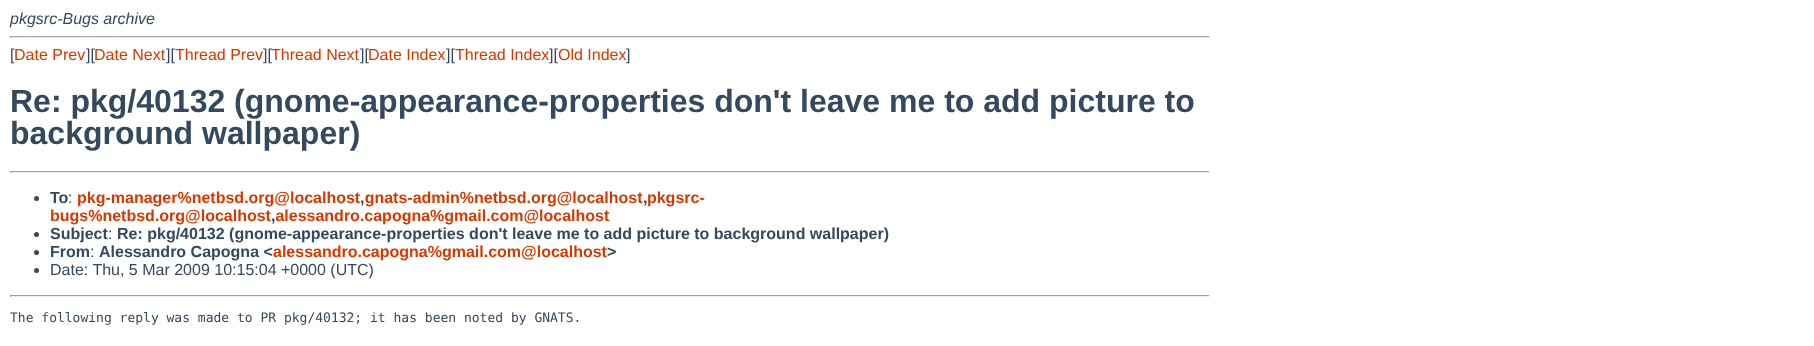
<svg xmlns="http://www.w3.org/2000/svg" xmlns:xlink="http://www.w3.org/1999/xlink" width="1814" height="346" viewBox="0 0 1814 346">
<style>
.cls-1{font:italic 16px Liberation Sans;fill:#34495e}
.cls-2{font:16px Liberation Sans;fill:#34495e}
.cls-3{font:16px Liberation Sans;fill:#d43900}
.cls-4{font:bold 32px Liberation Sans;fill:#34495e}
.cls-5{font:bold 16px Liberation Sans;fill:#34495e}
.cls-6{font:bold 16px Liberation Sans;fill:#d43900}
.cls-7{font:13px DejaVu Sans Mono;fill:#34495e}
</style>
<rect width="100%" height="100%" fill="#ffffff"/>
<rect fill="#9f9f9f" x="10" y="36" width="1200" height="1"/>
<rect fill="#eeeeee" x="1209" y="36" width="1" height="2"/>
<rect fill="#eeeeee" x="10" y="37" width="1200" height="1"/>
<rect fill="#9f9f9f" x="10" y="36" width="1" height="2"/>
<rect fill="#9f9f9f" x="10" y="171" width="1200" height="1"/>
<rect fill="#eeeeee" x="1209" y="171" width="1" height="2"/>
<rect fill="#eeeeee" x="10" y="172" width="1200" height="1"/>
<rect fill="#9f9f9f" x="10" y="171" width="1" height="2"/>
<circle fill="#34495e" cx="36.5" cy="198.5" r="2.5"/>
<circle fill="#34495e" cx="36.5" cy="234.5" r="2.5"/>
<circle fill="#34495e" cx="36.5" cy="252.5" r="2.5"/>
<circle fill="#34495e" cx="36.5" cy="270.5" r="2.5"/>
<rect fill="#9f9f9f" x="10" y="295" width="1200" height="1"/>
<rect fill="#eeeeee" x="1209" y="295" width="1" height="2"/>
<rect fill="#eeeeee" x="10" y="296" width="1200" height="1"/>
<rect fill="#9f9f9f" x="10" y="295" width="1" height="2"/>
<text class="cls-1" x="10" y="24">pkgsrc-Bugs archive</text>
<text class="cls-2" x="10" y="60">[</text>
<text class="cls-3" x="14" y="60">Date Prev</text>
<text class="cls-2" x="86" y="60">][</text>
<text class="cls-3" x="94" y="60">Date Next</text>
<text class="cls-2" x="166" y="60">][</text>
<text class="cls-3" x="175" y="60">Thread Prev</text>
<text class="cls-2" x="263" y="60">][</text>
<text class="cls-3" x="271" y="60">Thread Next</text>
<text class="cls-2" x="360" y="60">][</text>
<text class="cls-3" x="368" y="60">Date Index</text>
<text class="cls-2" x="446" y="60">][</text>
<text class="cls-3" x="455" y="60">Thread Index</text>
<text class="cls-2" x="549" y="60">][</text>
<text class="cls-3" x="558" y="60">Old Index</text>
<text class="cls-2" x="626" y="60">]</text>
<text class="cls-4"><tspan x="10" y="112">Re: pkg/40132 (gnome-appearance-properties don't leave me to add picture to</tspan><tspan x="10" y="144">background wallpaper)</tspan></text>
<text class="cls-5" x="50" y="203">To</text>
<text class="cls-2" x="68" y="203">:</text>
<text class="cls-6" x="77" y="203">pkg-manager%netbsd.org@localhost gnats-admin%netbsd.org@localhost pkgsrc-</text>
<text class="cls-5" x="360" y="203">,</text>
<text class="cls-5" x="643" y="203">,</text>
<text class="cls-6" x="50" y="221">bugs%netbsd.org@localhost alessandro.capogna%gmail.com@localhost</text>
<text class="cls-5" x="271" y="221">,</text>
<text class="cls-5" x="50" y="239">Subject</text>
<text class="cls-2" x="108" y="239">:</text>
<text class="cls-5" x="117" y="239">Re: pkg/40132 (gnome-appearance-properties don't leave me to add picture to background wallpaper)</text>
<text class="cls-5" x="50" y="257">From</text>
<text class="cls-2" x="90" y="257">:</text>
<text class="cls-5" x="99" y="257">Alessandro Capogna &lt;</text>
<text class="cls-6" x="273" y="257">alessandro.capogna%gmail.com@localhost</text>
<text class="cls-5" x="607" y="257">&gt;</text>
<text class="cls-2" x="50" y="275">Date: Thu, 5 Mar 2009 10:15:04 +0000 (UTC)</text>
<text class="cls-7" x="10" y="322">The following reply was made to PR pkg/40132; it has been noted by GNATS.</text>
</svg>
